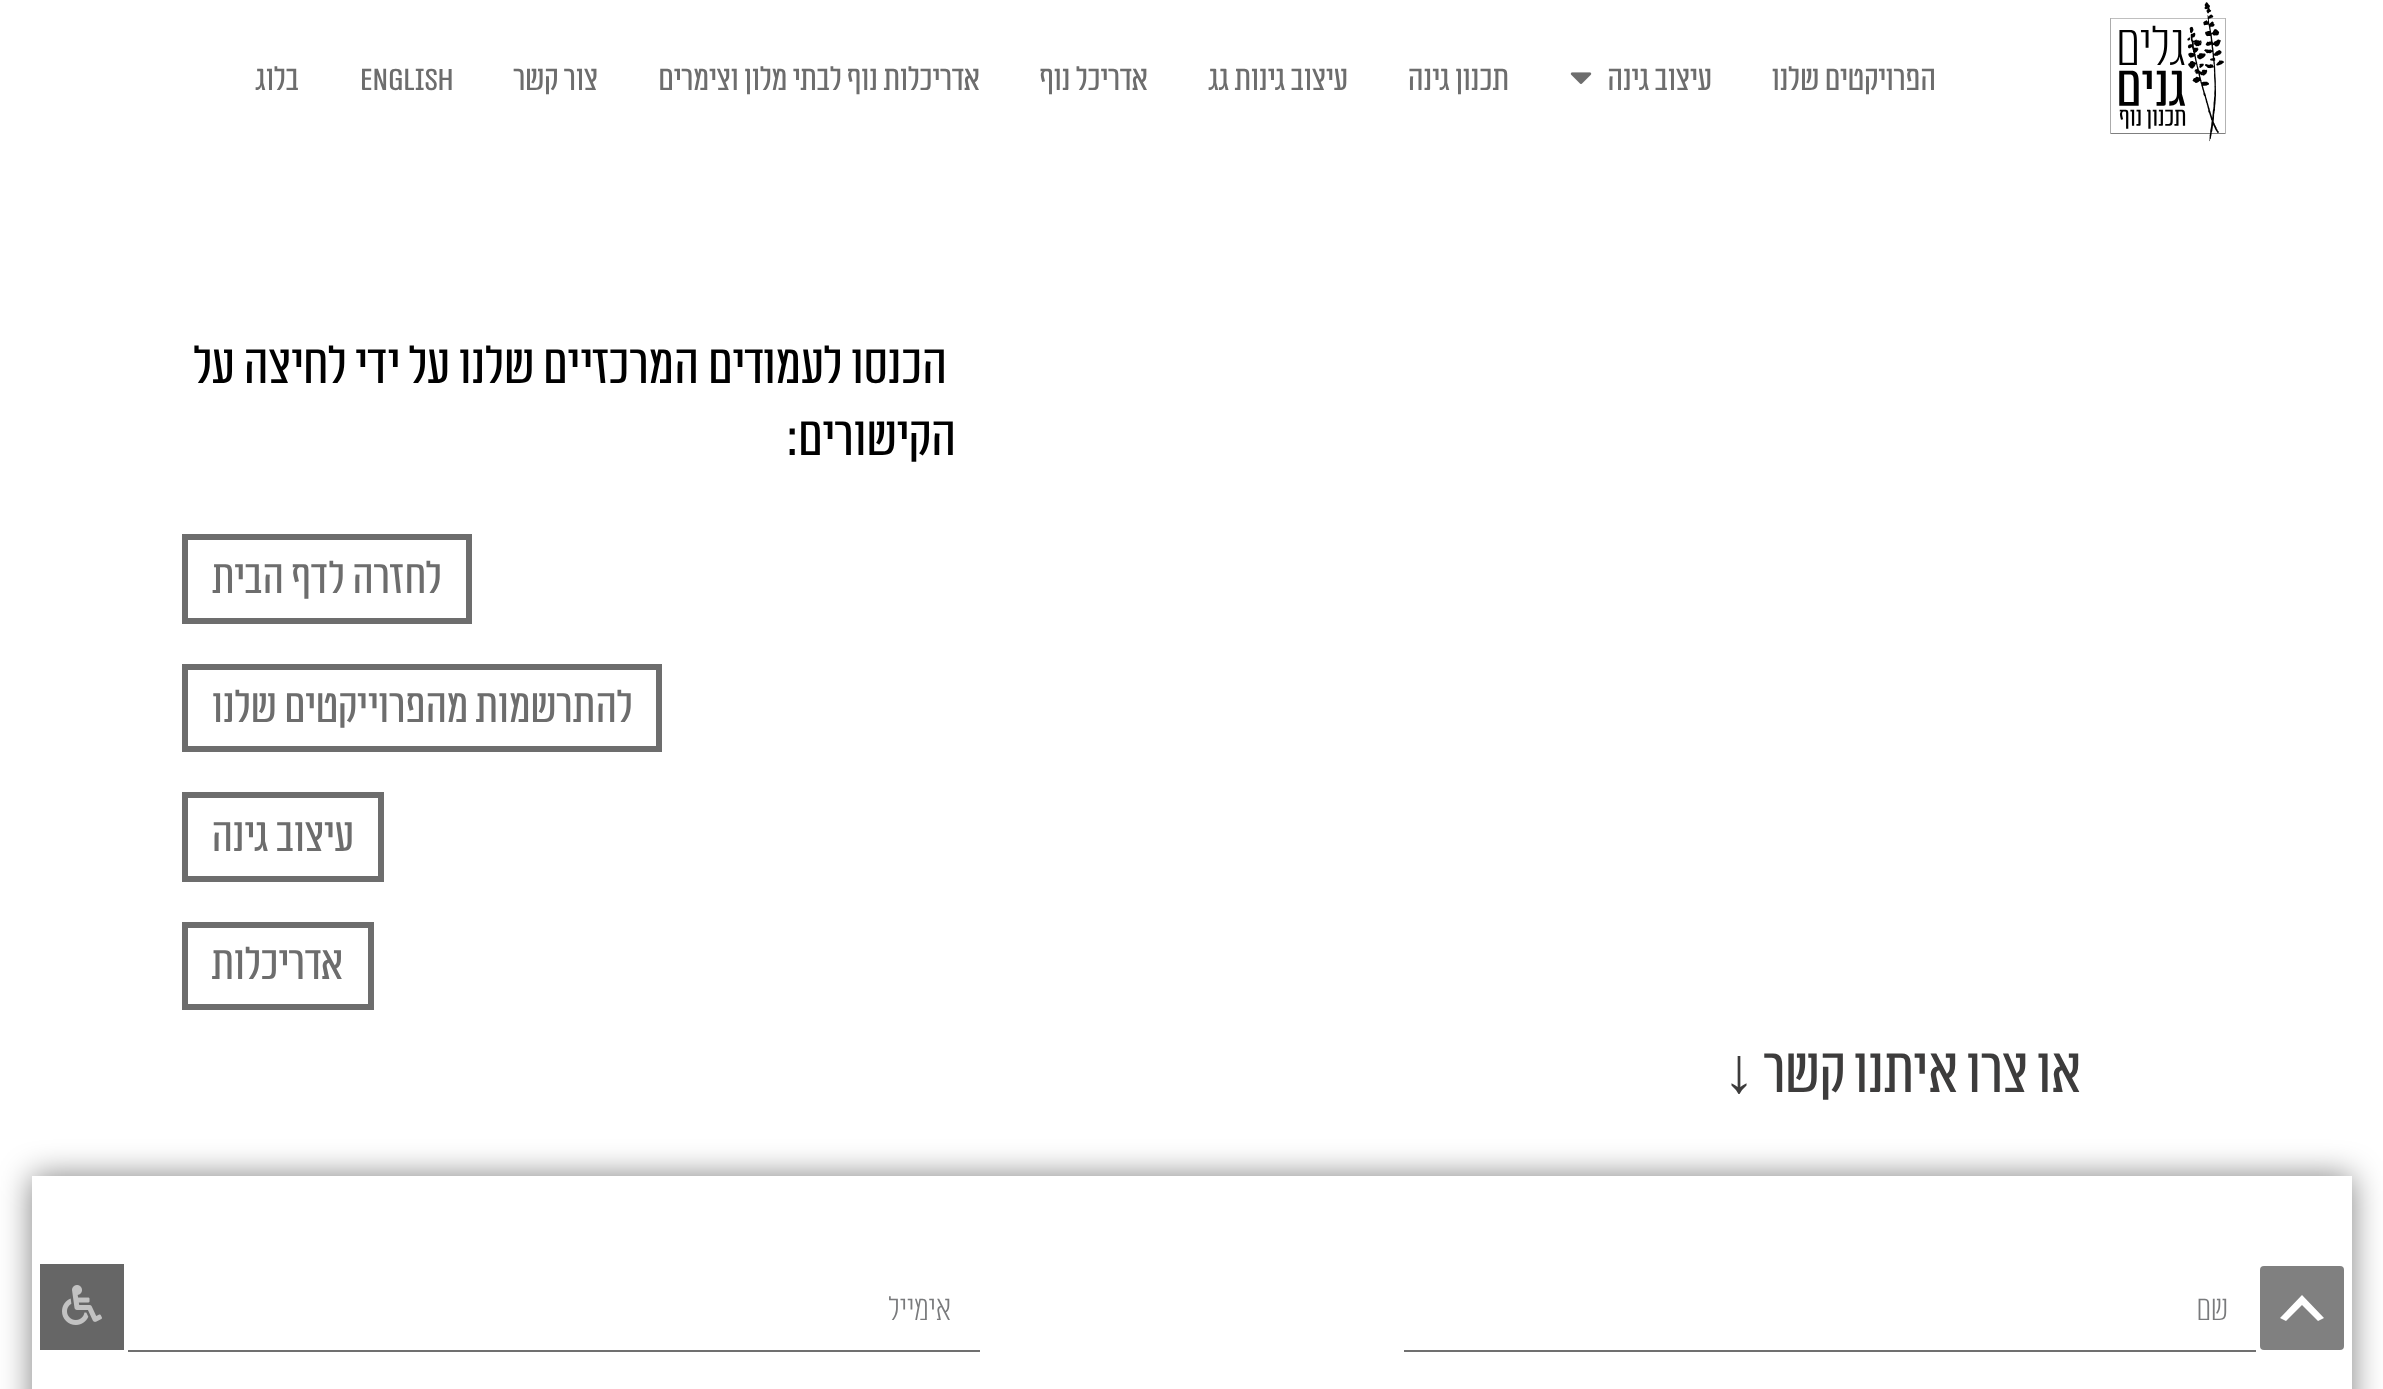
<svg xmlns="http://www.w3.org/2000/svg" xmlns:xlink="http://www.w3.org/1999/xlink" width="2383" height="1389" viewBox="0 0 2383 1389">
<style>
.cls-1{font:35.25px 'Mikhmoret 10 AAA';direction:rtl;fill:#6d6d6d}
.cls-2{font:35.25px 'Mikhmoret 10 AAA';fill:#6d6d6d}
.cls-3{font:56px 'Mikhmoret 10 AAA';direction:rtl;fill:#000000}
.cls-4{font:48px 'Mikhmoret 10 AAA';direction:rtl;fill:#6d6d6d}
.cls-5{font:64px 'Mikhmoret 10 AAA';direction:rtl;fill:#3d3c3c}
.cls-6{font:64px Liberation Sans;direction:rtl;fill:#3d3c3c}
.cls-7{font:300 35.25px 'Mikhmoret 10 AAA';direction:rtl;fill:#797a7c}
</style>
<defs>
<clipPath id="clip1"><path d="M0 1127H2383V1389H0ZM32 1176H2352V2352H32Z" clip-rule="evenodd"/></clipPath>
</defs>
<rect width="100%" height="100%" fill="#ffffff"/>
<image xlink:href="image0.png" x="2110" y="2" width="116" height="140"/>
<image xlink:href="image1.png" x="1570" y="72" width="22" height="12"/>
<g clip-path="url(#clip1)">
<rect fill="#000000" fill-opacity="0.5" filter="blur(16px)" x="32" y="1176" width="2320" height="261"/>
</g>
<rect fill="#808080" x="2260" y="1266" width="84" height="84" rx="4"/>
<path fill="#ffffff" d="M2318 1321L2302 1305L2286 1321L2280 1318L2302 1295L2324 1318Z"/>
<rect fill="none" stroke="#6d6d6d" stroke-width="6" x="185" y="537" width="284" height="84"/>
<rect fill="none" stroke="#6d6d6d" stroke-width="6" x="185" y="667" width="474" height="82"/>
<rect fill="none" stroke="#6d6d6d" stroke-width="6" x="185" y="795" width="196" height="84"/>
<rect fill="none" stroke="#6d6d6d" stroke-width="6" x="185" y="925" width="186" height="82"/>
<rect fill="#707070" x="1404" y="1350" width="852" height="2"/>
<rect fill="#707070" x="128" y="1350" width="852" height="2"/>
<rect fill="#666666" x="40" y="1264" width="84" height="86"/>
<image xlink:href="image2.png" x="62" y="1285" width="40" height="40"/>
<text class="cls-1" x="1936" y="90">הפרויקטים שלנו</text>
<text class="cls-1" x="1712" y="90">עיצוב גינה</text>
<text class="cls-1" x="1509" y="90">תכנון גינה</text>
<text class="cls-1" x="1348" y="90">עיצוב גינות גג</text>
<text class="cls-1" x="1148" y="90">אדריכל נוף</text>
<text class="cls-1" x="980" y="90">אדריכלות נוף לבתי מלון וצימרים</text>
<text class="cls-1" x="598" y="90">צור קשר</text>
<text class="cls-2" x="360" y="90">ENGLISH</text>
<text class="cls-1" x="299" y="90">בלוג</text>
<text class="cls-3" x="947" y="383">הכנסו לעמודים המרכזיים שלנו על ידי לחיצה על</text>
<text class="cls-3" x="956" y="455">הקישורים:</text>
<text class="cls-4" x="442" y="593">לחזרה לדף הבית</text>
<text class="cls-4" x="633" y="722">להתרשמות מהפרוייקטים שלנו</text>
<text class="cls-4" x="354" y="851">עיצוב גינה</text>
<text class="cls-4" x="343" y="979">אדריכלות</text>
<text class="cls-5" x="2081" y="1092" word-spacing="-1.5">או צרו איתנו קשר</text>
<text class="cls-6" x="1755" y="1092">↓</text>
<text class="cls-7" x="2228" y="1320">שם</text>
<text class="cls-7" x="951" y="1320">אימייל</text>
</svg>
